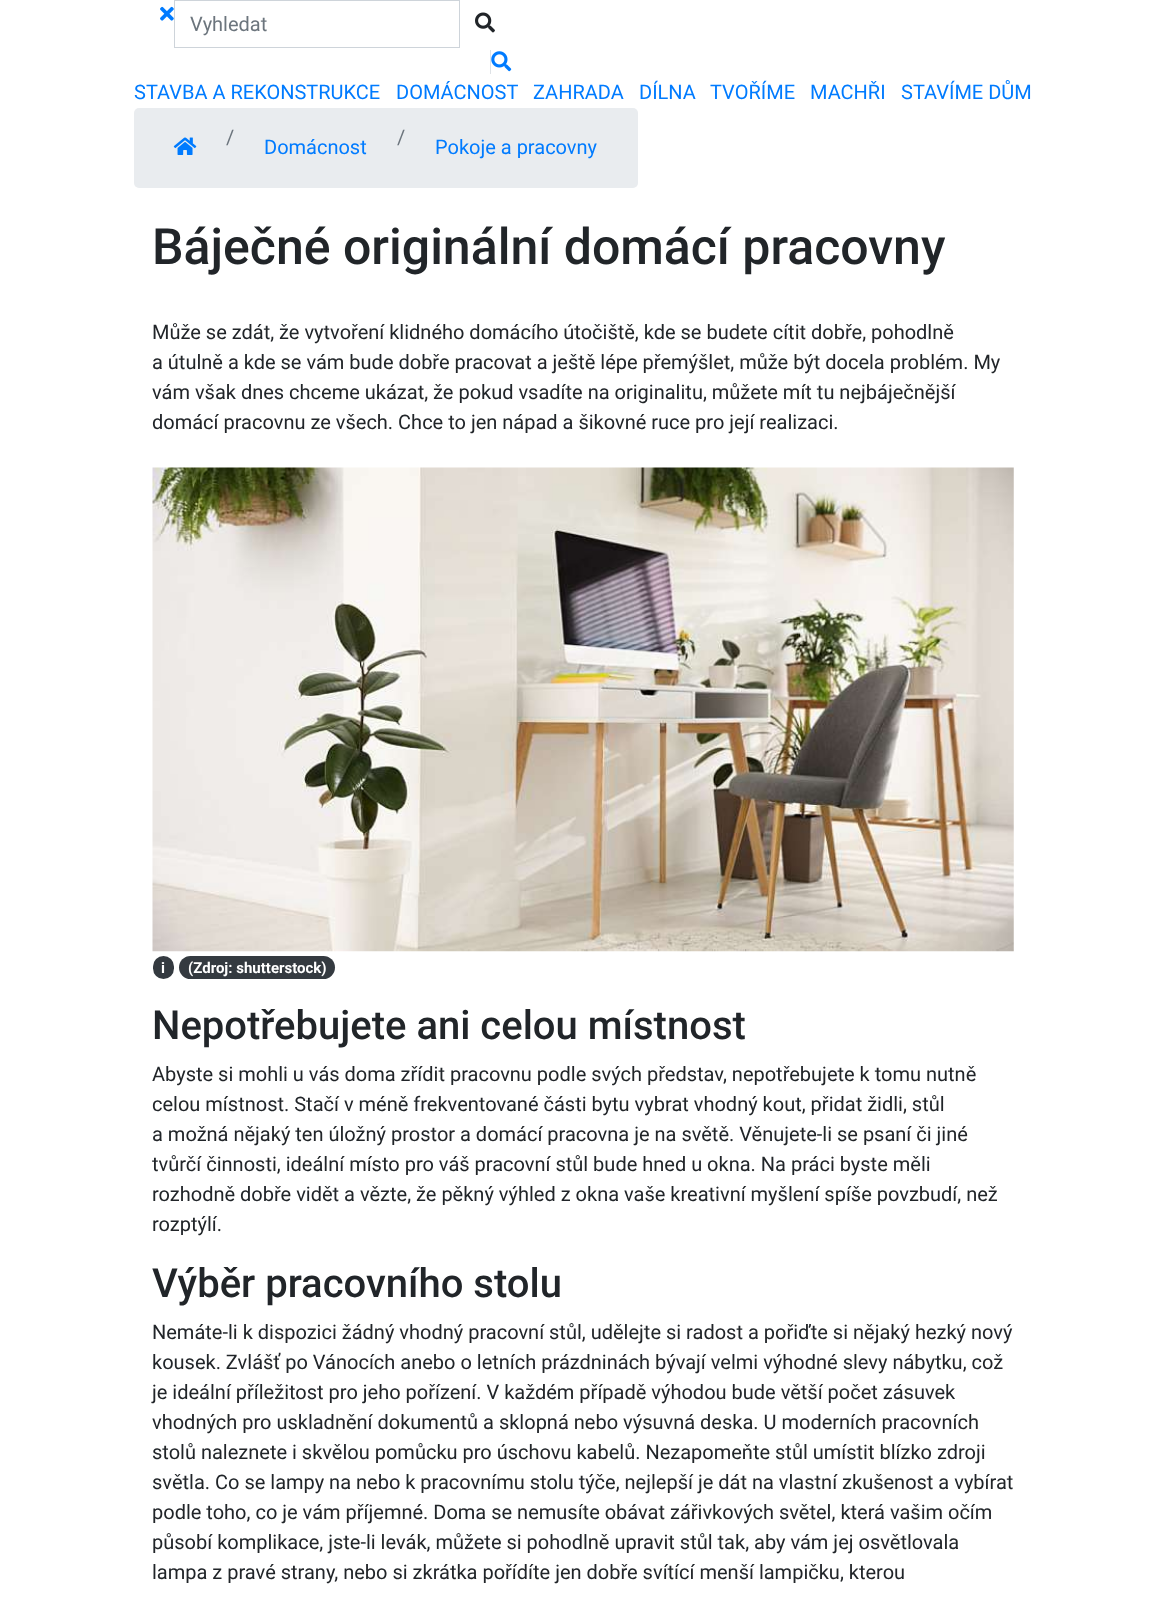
<svg xmlns="http://www.w3.org/2000/svg" xmlns:xlink="http://www.w3.org/1999/xlink" width="1166" height="1602" viewBox="0 0 1166 1602">
<style>
.cls-1{font:20px Roboto;fill:#6c757d}
.cls-2{font:20px Roboto;fill:#007bff}
.cls-3{font:500 50px Roboto;fill:#212529}
.cls-4{font:20px Roboto;fill:#212529}
.cls-5{font:bold 15px Roboto;fill:#ffffff}
.cls-6{font:500 40px Roboto;fill:#212529}
</style>
<rect width="100%" height="100%" fill="#ffffff"/>
<image xlink:href="image0.png" x="160" y="6" width="14" height="15"/>
<rect fill="none" stroke="#ced4da" x="174.5" y="0.5" width="285" height="47"/>
<image xlink:href="image1.png" x="475" y="12" width="20" height="21"/>
<rect fill="#dee2e6" x="490" y="50" width="1" height="24"/>
<image xlink:href="image2.png" x="491" y="51" width="21" height="21"/>
<rect fill="#e9ecef" x="134" y="108" width="504" height="80" rx="5"/>
<image xlink:href="image3.png" x="173" y="137" width="24" height="18"/>
<image xlink:href="image4.png" x="152" y="467" width="862" height="485"/>
<rect fill="#343a40" x="153" y="956" width="21" height="23" rx="10.5"/>
<rect fill="#343a40" x="179" y="956" width="156" height="23" rx="11.5"/>
<text class="cls-1" x="190" y="31">Vyhledat</text>
<text class="cls-2" x="134" y="99">STAVBA A REKONSTRUKCE</text>
<text class="cls-2" x="396" y="99">DOMÁCNOST</text>
<text class="cls-2" x="533" y="99">ZAHRADA</text>
<text class="cls-2" x="639" y="99">DÍLNA</text>
<text class="cls-2" x="710" y="99">TVOŘÍME</text>
<text class="cls-2" x="810" y="99">MACHŘI</text>
<text class="cls-2" x="901" y="99">STAVÍME DŮM</text>
<text class="cls-1" x="226" y="144">/</text>
<text class="cls-2" x="264" y="154">Domácnost</text>
<text class="cls-1" x="397" y="144">/</text>
<text class="cls-2" x="435" y="154">Pokoje a pracovny</text>
<text class="cls-3" x="152" y="264">Báječné originální domácí pracovny</text>
<text class="cls-4"><tspan x="152" y="339">Může se zdát, že vytvoření klidného domácího útočiště, kde se budete cítit dobře, pohodlně</tspan><tspan x="152" y="369">a útulně a kde se vám bude dobře pracovat a ještě lépe přemýšlet, může být docela problém. My</tspan><tspan x="152" y="399">vám však dnes chceme ukázat, že pokud vsadíte na originalitu, můžete mít tu nejbáječnější</tspan><tspan x="152" y="429">domácí pracovnu ze všech. Chce to jen nápad a šikovné ruce pro její realizaci.</tspan></text>
<text class="cls-5" x="161" y="973">i</text>
<text class="cls-5" x="188" y="973">(Zdroj: shutterstock)</text>
<text class="cls-6" x="152" y="1039">Nepotřebujete ani celou místnost</text>
<text class="cls-4"><tspan x="152" y="1081">Abyste si mohli u vás doma zřídit pracovnu podle svých představ, nepotřebujete k tomu nutně</tspan><tspan x="152" y="1111">celou místnost. Stačí v méně frekventované části bytu vybrat vhodný kout, přidat židli, stůl</tspan><tspan x="152" y="1141">a možná nějaký ten úložný prostor a domácí pracovna je na světě. Věnujete-li se psaní či jiné</tspan><tspan x="152" y="1171">tvůrčí činnosti, ideální místo pro váš pracovní stůl bude hned u okna. Na práci byste měli</tspan><tspan x="152" y="1201">rozhodně dobře vidět a vězte, že pěkný výhled z okna vaše kreativní myšlení spíše povzbudí, než</tspan><tspan x="152" y="1231">rozptýlí.</tspan></text>
<text class="cls-6" x="152" y="1297">Výběr pracovního stolu</text>
<text class="cls-4"><tspan x="152" y="1339">Nemáte-li k dispozici žádný vhodný pracovní stůl, udělejte si radost a pořiďte si nějaký hezký nový</tspan><tspan x="152" y="1369">kousek. Zvlášť po Vánocích anebo o letních prázdninách bývají velmi výhodné slevy nábytku, což</tspan><tspan x="152" y="1399">je ideální příležitost pro jeho pořízení. V každém případě výhodou bude větší počet zásuvek</tspan><tspan x="152" y="1429">vhodných pro uskladnění dokumentů a sklopná nebo výsuvná deska. U moderních pracovních</tspan><tspan x="152" y="1459">stolů naleznete i skvělou pomůcku pro úschovu kabelů. Nezapomeňte stůl umístit blízko zdroji</tspan><tspan x="152" y="1489">světla. Co se lampy na nebo k pracovnímu stolu týče, nejlepší je dát na vlastní zkušenost a vybírat</tspan><tspan x="152" y="1519">podle toho, co je vám příjemné. Doma se nemusíte obávat zářivkových světel, která vašim očím</tspan><tspan x="152" y="1549">působí komplikace, jste-li levák, můžete si pohodlně upravit stůl tak, aby vám jej osvětlovala</tspan><tspan x="152" y="1579">lampa z pravé strany, nebo si zkrátka pořídíte jen dobře svítící menší lampičku, kterou</tspan></text>
</svg>
